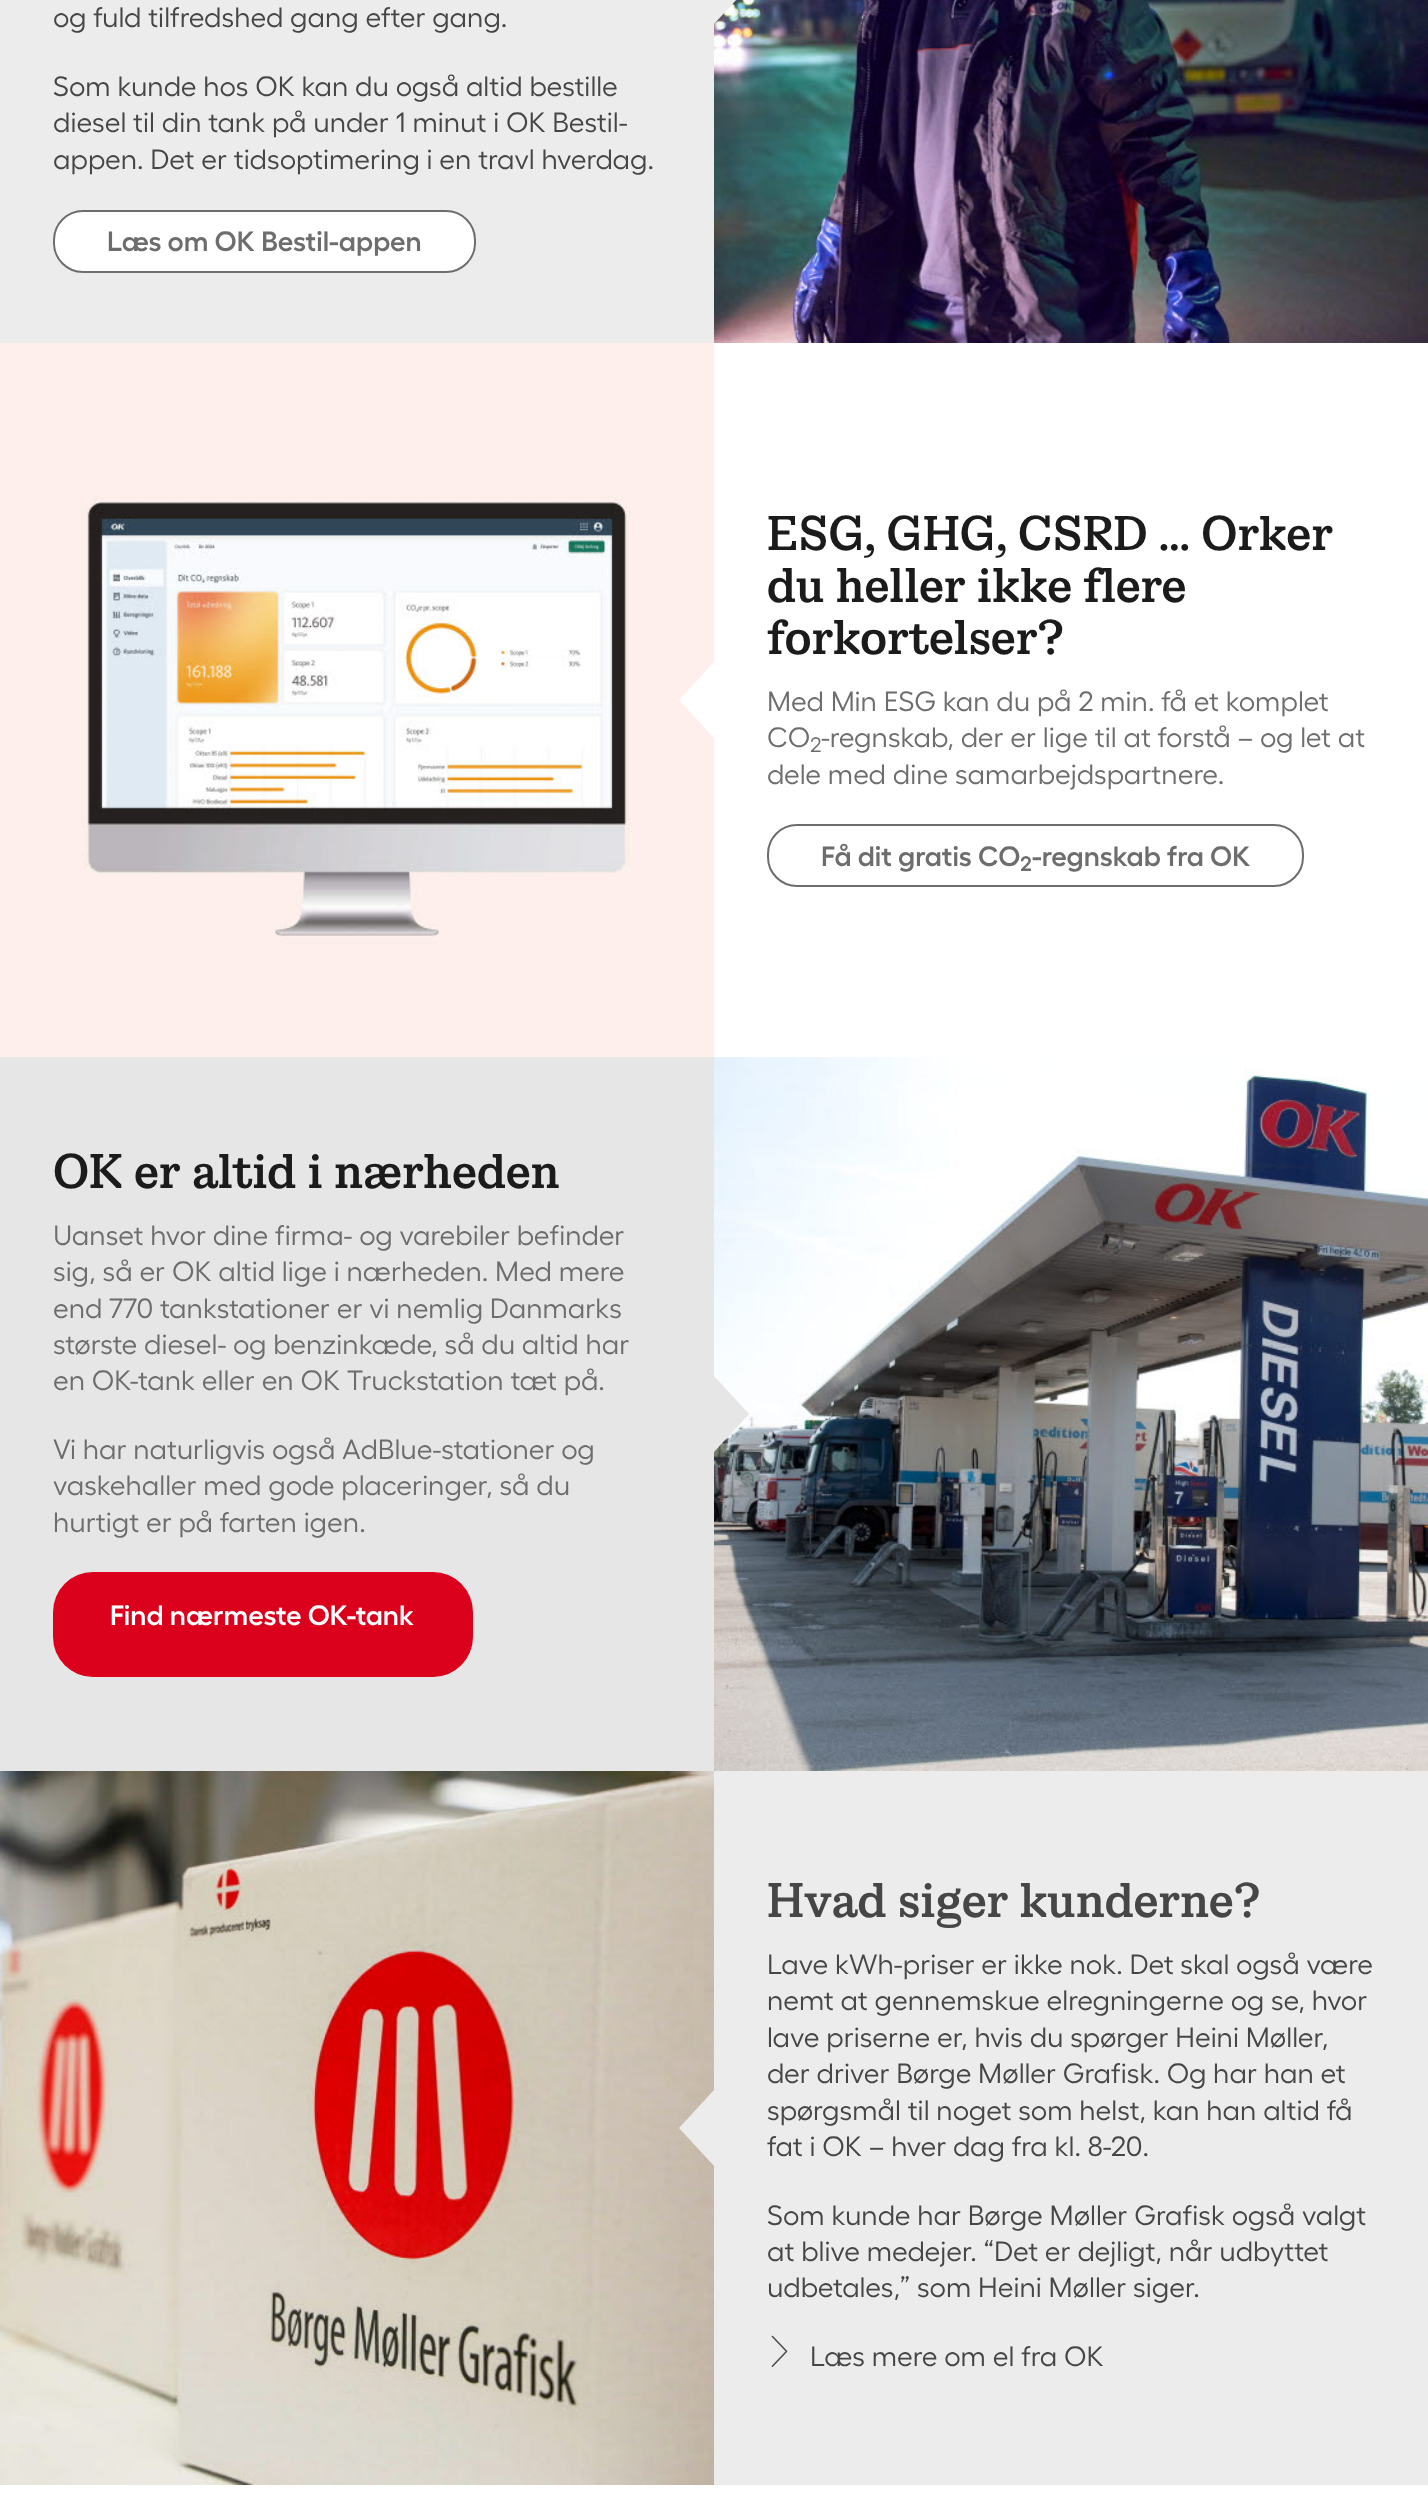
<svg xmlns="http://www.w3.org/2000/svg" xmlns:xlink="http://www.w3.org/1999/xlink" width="1428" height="2493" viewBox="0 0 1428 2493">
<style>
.cls-1{font:28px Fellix;fill:#464646}
.cls-2{font:600 28px Fellix;fill:#6d6d6d}
.cls-3{font:600 47.25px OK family;fill:#1b1b1b}
.cls-4{font:28px Fellix;fill:#6d6d6d}
.cls-5{font:21px Fellix;fill:#6d6d6d}
.cls-6{font:600 21px Fellix;fill:#6d6d6d}
.cls-7{font:600 28px Fellix;fill:#ffffff}
.cls-8{font:600 47.25px OK family;fill:#464646}
</style>
<rect width="100%" height="100%" fill="#ffffff"/>
<rect fill="#ececec" x="0" y="0" width="714" height="343"/>
<rect fill="#ffffff" stroke="#6d6d6d" stroke-width="2" x="54" y="211" width="421" height="61" rx="29"/>
<image xlink:href="image0.png" x="714" y="0" width="714" height="343"/>
<path fill="#ececec" d="M714 24V-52L749-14Z"/>
<image xlink:href="image1.png" x="0" y="343" width="714" height="714"/>
<path fill="#ffffff" d="M714 662V738L679 700Z"/>
<rect fill="none" stroke="#6d6d6d" stroke-width="2" x="768" y="825" width="535" height="61" rx="29"/>
<rect fill="#e7e6e6" x="0" y="1057" width="714" height="714"/>
<rect fill="#db001b" x="53" y="1572" width="420" height="105" rx="40"/>
<image xlink:href="image2.png" x="714" y="1057" width="714" height="714"/>
<path fill="#e7e6e6" d="M714 1452V1376L749 1414Z"/>
<image xlink:href="image3.png" x="0" y="1771" width="714" height="714"/>
<rect fill="#ececec" x="714" y="1771" width="714" height="714"/>
<path fill="#ececec" d="M714 2090V2166L679 2128Z"/>
<image xlink:href="image4.png" x="771" y="2335" width="17" height="32"/>
<text class="cls-1" x="53" y="27">og fuld tilfredshed gang efter gang.</text>
<text class="cls-1"><tspan x="53" y="96">Som kunde hos OK kan du også altid bestille</tspan><tspan x="53" y="132">diesel til din tank på under 1 minut i OK Bestil-</tspan><tspan x="53" y="169">appen. Det er tidsoptimering i en travl hverdag.</tspan></text>
<text class="cls-2" x="107" y="251">Læs om OK Bestil-appen</text>
<text class="cls-3"><tspan x="767" y="550">ESG, GHG, CSRD … Orker</tspan><tspan x="767" y="602">du heller ikke flere</tspan><tspan x="767" y="654">forkortelser?</tspan></text>
<text class="cls-4"><tspan x="767" y="711">Med Min ESG kan du på 2 min. få et komplet</tspan><tspan x="767" y="747">CO</tspan></text>
<text class="cls-5" x="810" y="752">2</text>
<text class="cls-4" x="821" y="747">-regnskab, der er lige til at forstå – og let at</text>
<text class="cls-4" x="767" y="784">dele med dine samarbejdspartnere.</text>
<text class="cls-2" x="821" y="866">Få dit gratis CO</text>
<text class="cls-6" x="1020" y="871">2</text>
<text class="cls-2" x="1032" y="866">-regnskab fra OK</text>
<text class="cls-3" x="53" y="1188">OK er altid i nærheden</text>
<text class="cls-4"><tspan x="53" y="1245">Uanset hvor dine firma- og varebiler befinder</tspan><tspan x="53" y="1281">sig, så er OK altid lige i nærheden. Med mere</tspan><tspan x="53" y="1318">end 770 tankstationer er vi nemlig Danmarks</tspan><tspan x="53" y="1354">største diesel- og benzinkæde, så du altid har</tspan><tspan x="53" y="1390">en OK-tank eller en OK Truckstation tæt på.</tspan></text>
<text class="cls-4"><tspan x="53" y="1459">Vi har naturligvis også AdBlue-stationer og</tspan><tspan x="53" y="1495">vaskehaller med gode placeringer, så du</tspan><tspan x="53" y="1532">hurtigt er på farten igen.</tspan></text>
<text class="cls-7" x="110" y="1625">Find nærmeste OK-tank</text>
<text class="cls-8" x="767" y="1917">Hvad siger kunderne?</text>
<text class="cls-1"><tspan x="767" y="1974">Lave kWh-priser er ikke nok. Det skal også være</tspan><tspan x="767" y="2010">nemt at gennemskue elregningerne og se, hvor</tspan><tspan x="767" y="2047">lave priserne er, hvis du spørger Heini Møller,</tspan><tspan x="767" y="2083">der driver Børge Møller Grafisk. Og har han et</tspan><tspan x="767" y="2120">spørgsmål til noget som helst, kan han altid få</tspan><tspan x="767" y="2156">fat i OK – hver dag fra kl. 8-20.</tspan></text>
<text class="cls-1"><tspan x="767" y="2225">Som kunde har Børge Møller Grafisk også valgt</tspan><tspan x="767" y="2261">at blive medejer. “Det er dejligt, når udbyttet</tspan><tspan x="767" y="2297">udbetales,” som Heini Møller siger.</tspan></text>
<text class="cls-1" x="810" y="2366">Læs mere om el fra OK</text>
</svg>
